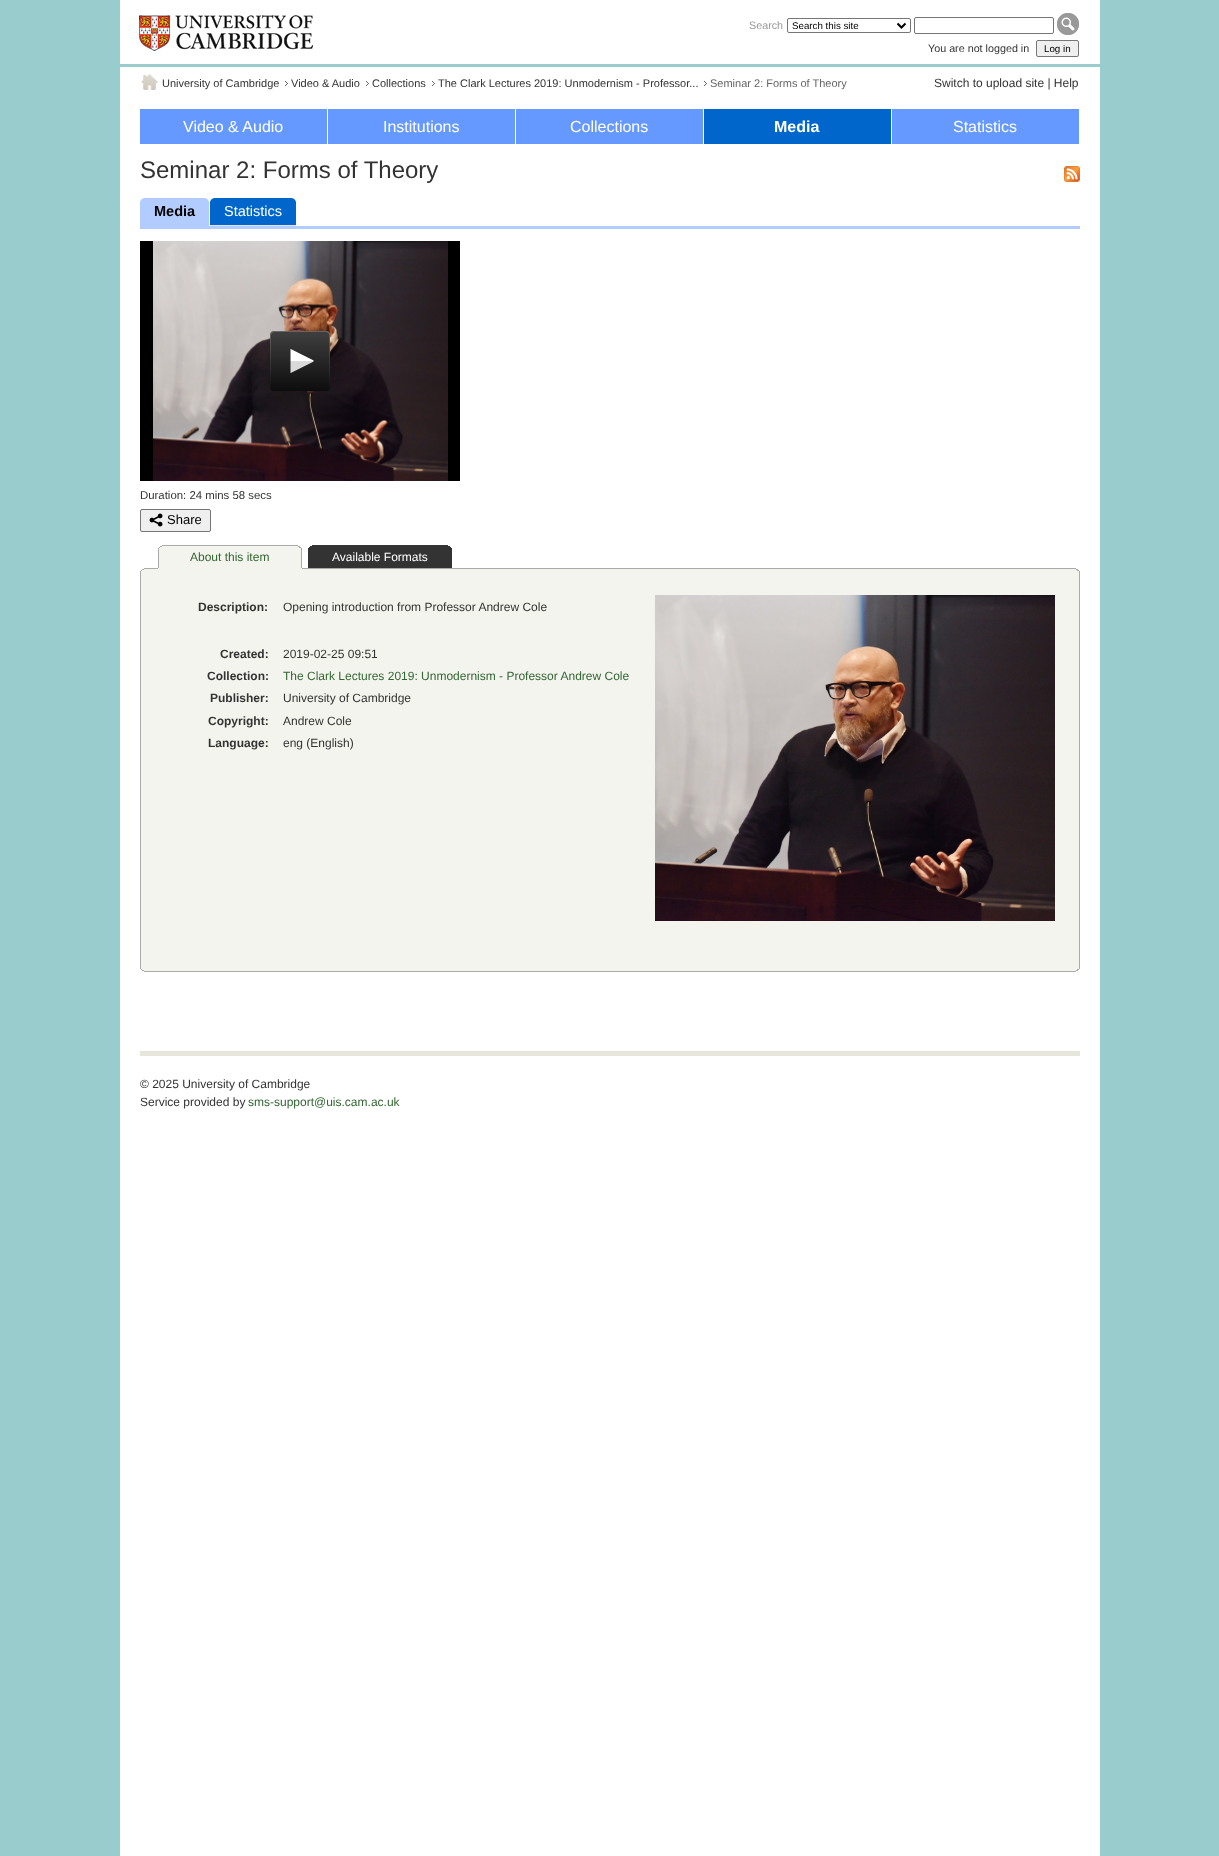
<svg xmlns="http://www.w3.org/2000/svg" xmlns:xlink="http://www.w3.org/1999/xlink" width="1219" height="1856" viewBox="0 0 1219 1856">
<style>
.cls-1{font:10.75px Liberation Sans;fill:#999999}
.cls-2{font:9.75px Liberation Sans;fill:#000000}
.cls-3{font:10.75px Liberation Sans;fill:#333333}
.cls-4{font:11px Liberation Sans;fill:#333333}
.cls-5{font:11px Liberation Sans;fill:#666666}
.cls-6{font:12px Liberation Sans;fill:#333333}
.cls-7{font:16px Liberation Sans;fill:#ffffff}
.cls-8{font:bold 16px Liberation Sans;fill:#ffffff}
.cls-9{font:24px Liberation Sans;fill:#333333}
.cls-10{font:bold 14.5px Liberation Sans;fill:#000000}
.cls-11{font:14.5px Liberation Sans;fill:#ffffff}
.cls-12{font:11.4px Liberation Sans;fill:#333333}
.cls-13{font:13px Liberation Sans;fill:#000000}
.cls-14{font:12px Liberation Sans;fill:#336633}
.cls-15{font:12px Liberation Sans;fill:#ffffff}
.cls-16{font:bold 12px Liberation Sans;fill:#333333}
</style>
<rect width="100%" height="100%" fill="#99cccc"/>
<rect fill="#ffffff" x="120" y="0" width="980" height="1856"/>
<rect fill="#99cccc" x="120" y="64" width="980" height="3"/>
<image xlink:href="image0.png" x="139" y="15" width="174" height="36"/>
<rect fill="none" stroke="#767676" x="787.5" y="18.5" width="123" height="14" rx="1.5"/>
<path fill="none" stroke="#000000" stroke-width="2" d="M897.5 23.5L901.5 27.5L905.5 23.5"/>
<rect fill="none" stroke="#767676" x="914.5" y="17.5" width="139" height="16" rx="1.5"/>
<image xlink:href="image1.png" x="1057" y="13" width="22" height="22"/>
<rect fill="#efefef" stroke="#767676" x="1036.5" y="40.5" width="42" height="16" rx="1.5"/>
<image xlink:href="image2.png" x="141" y="74" width="17" height="16"/>
<image xlink:href="image3.png" x="285" y="81" width="3" height="5"/>
<image xlink:href="image3.png" x="366" y="81" width="3" height="5"/>
<image xlink:href="image3.png" x="432" y="81" width="3" height="5"/>
<image xlink:href="image3.png" x="704" y="81" width="3" height="5"/>
<rect fill="#6699ff" x="140" y="109" width="187" height="35"/>
<rect fill="#6699ff" x="328" y="109" width="187" height="35"/>
<rect fill="#6699ff" x="516" y="109" width="187" height="35"/>
<rect fill="#0066cc" x="704" y="109" width="187" height="35"/>
<rect fill="#6699ff" x="892" y="109" width="187" height="35"/>
<image xlink:href="image4.png" x="1064" y="166" width="16" height="16"/>
<rect fill="#b2ccff" x="140" y="226" width="940" height="3"/>
<rect fill="#b2ccff" x="140" y="198" width="69" height="28"/>
<image xlink:href="image5.png" x="205" y="198" width="4" height="4"/>
<image xlink:href="image6.png" x="140" y="198" width="4" height="4"/>
<rect fill="#e0e0f0" x="210" y="225" width="86" height="1"/>
<rect fill="#0066cc" x="210" y="198" width="86" height="27"/>
<image xlink:href="image7.png" x="291" y="198" width="5" height="4"/>
<image xlink:href="image8.png" x="210" y="198" width="5" height="4"/>
<image xlink:href="image9.png" x="140" y="241" width="320" height="240"/>
<rect fill="#efefef" stroke="#767676" x="140.5" y="509.5" width="70" height="22" rx="1.5"/>
<image xlink:href="image10.png" x="149" y="513" width="14" height="14"/>
<rect fill="#aaaaaa" x="162" y="545" width="136" height="1"/>
<rect fill="#f4f4ee" x="160" y="546" width="140" height="1"/>
<rect fill="#aaaaaa" x="298" y="546" width="2" height="1"/>
<rect fill="#aaaaaa" x="160" y="546" width="2" height="1"/>
<rect fill="#f4f4ee" x="159" y="547" width="142" height="1"/>
<rect fill="#aaaaaa" x="299" y="547" width="2" height="1"/>
<rect fill="#aaaaaa" x="159" y="547" width="1" height="1"/>
<rect fill="#f4f4ee" x="158" y="548" width="144" height="2"/>
<rect fill="#aaaaaa" x="301" y="548" width="1" height="20"/>
<rect fill="#aaaaaa" x="158" y="548" width="1" height="20"/>
<rect fill="#f4f4ee" x="159" y="550" width="142" height="18"/>
<rect fill="#aaaaaa" x="144" y="568" width="932" height="1"/>
<rect fill="#f4f4ee" x="158" y="568" width="144" height="1"/>
<rect fill="#333333" x="312" y="545" width="136" height="1"/>
<rect fill="#333333" x="310" y="546" width="140" height="1"/>
<rect fill="#333333" x="309" y="547" width="142" height="1"/>
<rect fill="#333333" x="308" y="548" width="144" height="20"/>
<rect fill="#f4f4ee" x="142" y="569" width="936" height="1"/>
<rect fill="#aaaaaa" x="1076" y="569" width="2" height="1"/>
<rect fill="#aaaaaa" x="142" y="569" width="2" height="1"/>
<rect fill="#f4f4ee" x="141" y="570" width="938" height="1"/>
<rect fill="#aaaaaa" x="1077" y="570" width="2" height="1"/>
<rect fill="#aaaaaa" x="141" y="570" width="1" height="1"/>
<rect fill="#f4f4ee" x="140" y="571" width="940" height="2"/>
<rect fill="#aaaaaa" x="1079" y="571" width="1" height="396"/>
<rect fill="#aaaaaa" x="140" y="571" width="1" height="396"/>
<rect fill="#f4f4ee" x="141" y="573" width="938" height="394"/>
<image xlink:href="image11.png" x="655" y="595" width="400" height="326"/>
<rect fill="#f4f4ee" x="140" y="967" width="940" height="2"/>
<rect fill="#aaaaaa" x="1079" y="967" width="1" height="2"/>
<rect fill="#aaaaaa" x="140" y="967" width="1" height="2"/>
<rect fill="#f4f4ee" x="141" y="969" width="938" height="1"/>
<rect fill="#aaaaaa" x="1077" y="969" width="2" height="1"/>
<rect fill="#aaaaaa" x="141" y="969" width="1" height="1"/>
<rect fill="#f4f4ee" x="142" y="970" width="936" height="1"/>
<rect fill="#aaaaaa" x="1076" y="970" width="2" height="1"/>
<rect fill="#aaaaaa" x="142" y="970" width="2" height="1"/>
<rect fill="#aaaaaa" x="144" y="971" width="932" height="1"/>
<rect fill="#e6e6db" x="140" y="1051" width="940" height="5"/>
<text class="cls-1" x="749" y="29">Search</text>
<text class="cls-2" x="792" y="29">Search this site</text>
<text class="cls-3" x="928" y="52">You are not logged in</text>
<text class="cls-2" x="1044" y="52">Log in</text>
<text class="cls-4" x="162" y="87">University of Cambridge</text>
<text class="cls-4" x="291" y="87">Video &amp; Audio</text>
<text class="cls-4" x="372" y="87">Collections</text>
<text class="cls-4" x="438" y="87">The Clark Lectures 2019: Unmodernism - Professor...</text>
<text class="cls-5" x="710" y="87">Seminar 2: Forms of Theory</text>
<text class="cls-6" x="934" y="87">Switch to upload site | Help</text>
<text class="cls-7" x="183" y="132">Video &amp; Audio</text>
<text class="cls-7" x="383" y="132">Institutions</text>
<text class="cls-7" x="570" y="132">Collections</text>
<text class="cls-8" x="774" y="132">Media</text>
<text class="cls-7" x="953" y="132">Statistics</text>
<text class="cls-9" x="140" y="178">Seminar 2: Forms of Theory</text>
<text class="cls-10" x="154" y="216">Media</text>
<text class="cls-11" x="224" y="216">Statistics</text>
<text class="cls-12" x="140" y="499">Duration: 24 mins 58 secs</text>
<text class="cls-13" x="167" y="524">Share</text>
<text class="cls-14" x="190" y="561">About this item</text>
<text class="cls-15" x="332" y="561">Available Formats</text>
<text class="cls-16" x="198" y="611">Description:</text>
<text class="cls-6" x="283" y="611">Opening introduction from Professor Andrew Cole</text>
<text class="cls-16" x="220" y="658">Created:</text>
<text class="cls-6" x="283" y="658">2019-02-25 09:51</text>
<text class="cls-16" x="207" y="680">Collection:</text>
<text class="cls-14" x="283" y="680">The Clark Lectures 2019: Unmodernism - Professor Andrew Cole</text>
<text class="cls-16" x="210" y="702">Publisher:</text>
<text class="cls-6" x="283" y="702">University of Cambridge</text>
<text class="cls-16" x="208" y="725">Copyright:</text>
<text class="cls-6" x="283" y="725">Andrew Cole</text>
<text class="cls-16" x="208" y="747">Language:</text>
<text class="cls-6" x="283" y="747">eng (English)</text>
<text class="cls-6"><tspan x="140" y="1088">© 2025 University of Cambridge</tspan><tspan x="140" y="1106">Service provided by</tspan></text>
<text class="cls-14" x="248" y="1106">sms-support@uis.cam.ac.uk</text>
</svg>
